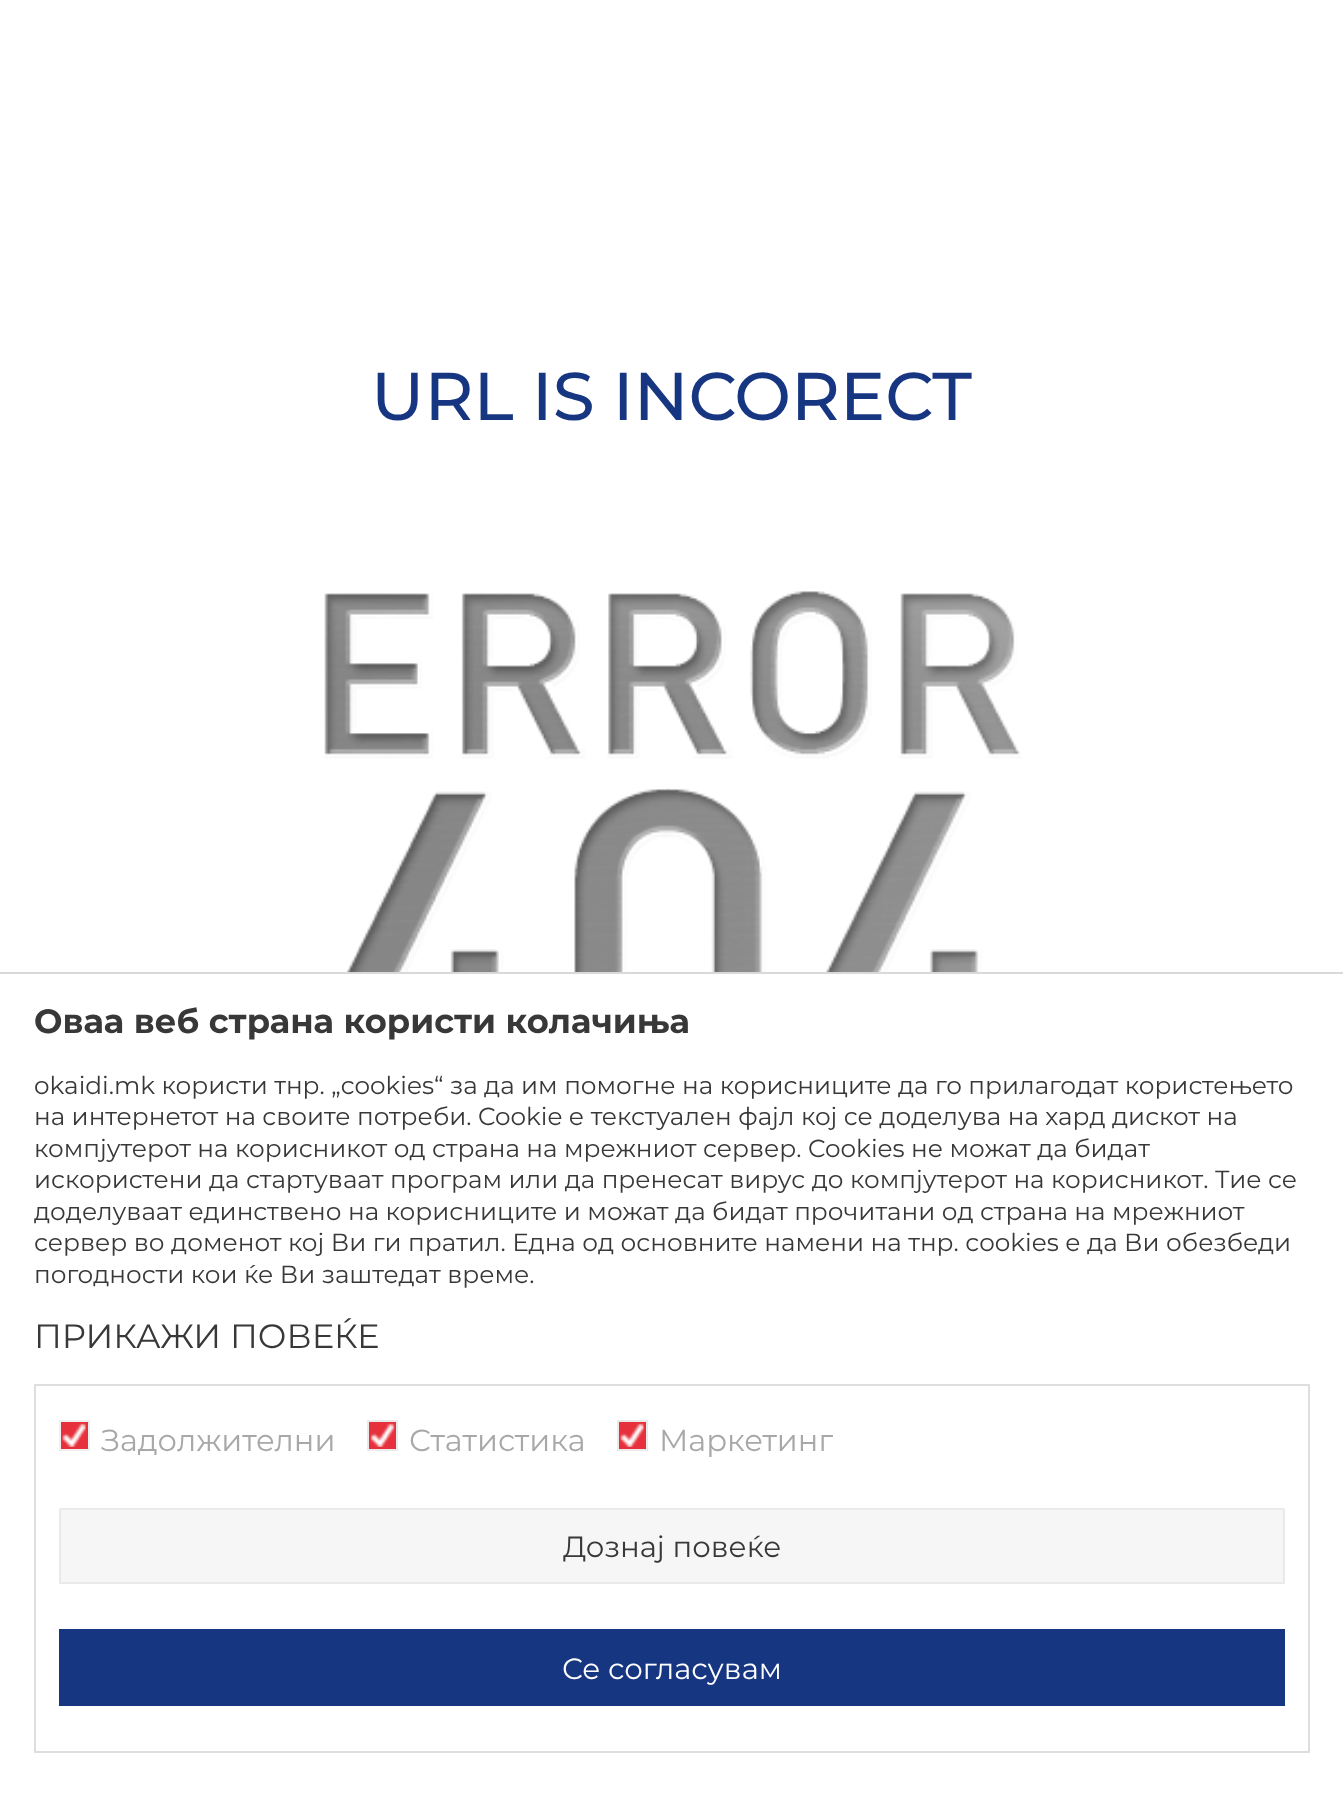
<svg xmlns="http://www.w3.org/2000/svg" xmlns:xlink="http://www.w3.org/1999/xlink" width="1343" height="1801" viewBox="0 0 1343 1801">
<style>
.cls-1{font:500 67.5px Montserrat;fill:#173682}
.cls-2{font:bold 33.75px Montserrat;fill:#383838}
.cls-3{font:24.75px Montserrat;fill:#383838}
.cls-4{font:33.75px Montserrat;fill:#383838}
.cls-5{font:30.5px Montserrat;fill:#a8a8a8}
.cls-6{font:29.25px Montserrat;fill:#383838}
.cls-7{font:29.25px Montserrat;fill:#ffffff}
</style>
<rect width="100%" height="100%" fill="#ffffff"/>
<image xlink:href="image0.png" x="322" y="591" width="699" height="381"/>
<rect fill="none" stroke="#d9d9d9" stroke-width="2" x="-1" y="973" width="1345" height="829"/>
<rect fill="none" stroke="#dedede" stroke-width="2" x="35" y="1385" width="1274" height="367"/>
<rect fill="#e6303b" x="61" y="1422" width="27" height="27"/>
<image xlink:href="image1.png" x="62" y="1423" width="24" height="24"/>
<rect fill="none" stroke="#f0f0f0" stroke-width="2" x="60" y="1421" width="29" height="29"/>
<rect fill="#e6303b" x="369" y="1422" width="27" height="27"/>
<image xlink:href="image2.png" x="370" y="1423" width="25" height="24"/>
<rect fill="none" stroke="#eaeaea" stroke-width="2" x="368" y="1421" width="29" height="29"/>
<rect fill="#e6303b" x="619" y="1422" width="27" height="27"/>
<image xlink:href="image1.png" x="620" y="1423" width="24" height="24"/>
<rect fill="none" stroke="#eaeaea" stroke-width="2" x="618" y="1421" width="29" height="29"/>
<rect fill="#f6f6f6" stroke="#eaeaea" stroke-width="2" x="60" y="1509" width="1224" height="74"/>
<rect fill="#173682" x="59" y="1629" width="1226" height="77"/>
<text class="cls-1" x="371" y="420">URL IS INCORECT</text>
<text class="cls-2" x="34" y="1033">Оваа веб страна користи колачиња</text>
<text class="cls-3"><tspan x="34" y="1094">okaidi.mk користи тнр. „cookies“ за да им помогне на корисниците да го прилагодат користењето</tspan><tspan x="34" y="1125">на интернетот на своите потреби. Cookie е текстуален фајл кој се доделува на хард дискот на</tspan><tspan x="34" y="1157">компјутерот на корисникот од страна на мрежниот сервер. Cookies не можат да бидат</tspan><tspan x="34" y="1188">искористени да стартуваат програм или да пренесат вирус до компјутерот на корисникот. Тие се</tspan><tspan x="34" y="1220">доделуваат единствено на корисниците и можат да бидат прочитани од страна на мрежниот</tspan><tspan x="34" y="1251">сервер во доменот кој Ви ги пратил. Една од основните намени на тнр. сookies е да Ви обезбеди</tspan><tspan x="34" y="1283">погодности кои ќе Ви заштедат време.</tspan></text>
<text class="cls-4" x="34" y="1348">ПРИКАЖИ ПОВЕЌЕ</text>
<text class="cls-5" x="101" y="1451">Задолжителни</text>
<text class="cls-5" x="409" y="1451">Статистика</text>
<text class="cls-5" x="659" y="1451">Маркетинг</text>
<text class="cls-6" x="563" y="1557">Дознај повеќе</text>
<text class="cls-7" x="562" y="1679">Се согласувам</text>
</svg>
